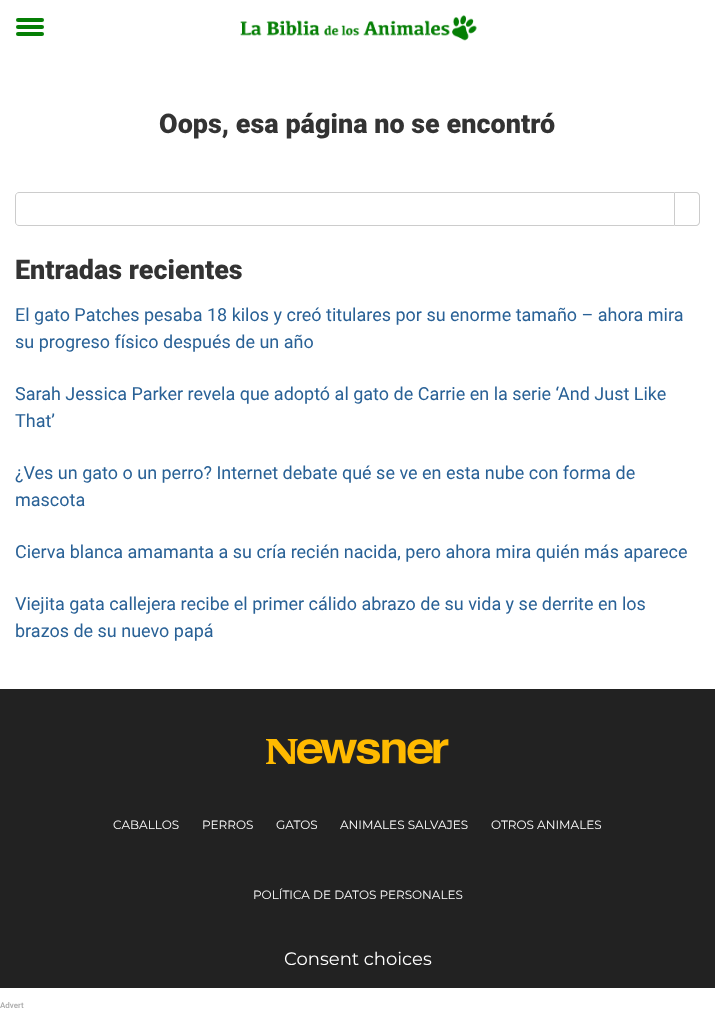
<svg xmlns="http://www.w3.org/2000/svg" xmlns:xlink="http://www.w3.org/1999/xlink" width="715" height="1019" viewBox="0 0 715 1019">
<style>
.cls-1{font:900 27px Roboto;fill:#333333}
.cls-2{font:18px Roboto;fill:#296196}
.cls-3{font:12px Montserrat;fill:#ffffff}
.cls-4{font:18px Montserrat;fill:#ffffff}
.cls-5{font:500 8px Roboto;fill:#aaaaaa}
</style>
<rect width="100%" height="100%" fill="#ffffff"/>
<rect fill="#057f05" x="16" y="18" width="28" height="4" rx="2"/>
<rect fill="#057f05" x="16" y="25" width="28" height="4" rx="2"/>
<rect fill="#057f05" x="16" y="32" width="28" height="4" rx="2"/>
<image xlink:href="image0.png" x="240" y="15" width="237" height="26"/>
<path fill="none" stroke="#cccccc" d="M19 192.5H674.5V225.5H19C17 225.5 15.5 224 15.5 222V196C15.5 194 17 192.5 19 192.5Z"/>
<path fill="#cccccc" fill-rule="evenodd" d="M675 192H696C698 192 700 194 700 196V222C700 224 698 226 696 226H675ZM675 193H696C697.5 193 699 194.5 699 196V222C699 223.5 697.5 225 696 225H675Z"/>
<rect fill="#222222" x="0" y="689" width="715" height="299"/>
<image xlink:href="image1.png" x="266" y="739" width="183" height="25"/>
<text class="cls-1" x="159" y="133">Oops, esa página no se encontró</text>
<text class="cls-1" x="15" y="279">Entradas recientes</text>
<text class="cls-2"><tspan x="15" y="321">El gato Patches pesaba 18 kilos y creó titulares por su enorme tamaño – ahora mira</tspan><tspan x="15" y="348">su progreso físico después de un año</tspan></text>
<text class="cls-2"><tspan x="15" y="400">Sarah Jessica Parker revela que adoptó al gato de Carrie en la serie ‘And Just Like</tspan><tspan x="15" y="427">That’</tspan></text>
<text class="cls-2"><tspan x="15" y="479">¿Ves un gato o un perro? Internet debate qué se ve en esta nube con forma de</tspan><tspan x="15" y="506">mascota</tspan></text>
<text class="cls-2" x="15" y="558">Cierva blanca amamanta a su cría recién nacida, pero ahora mira quién más aparece</text>
<text class="cls-2"><tspan x="15" y="610">Viejita gata callejera recibe el primer cálido abrazo de su vida y se derrite en los</tspan><tspan x="15" y="637">brazos de su nuevo papá</tspan></text>
<text class="cls-3" x="113" y="829">CABALLOS</text>
<text class="cls-3" x="202" y="829">PERROS</text>
<text class="cls-3" x="276" y="829">GATOS</text>
<text class="cls-3" x="340" y="829">ANIMALES SALVAJES</text>
<text class="cls-3" x="491" y="829">OTROS ANIMALES</text>
<text class="cls-3" x="253" y="899">POLÍTICA DE DATOS PERSONALES</text>
<text class="cls-4" x="284" y="965">Consent choices</text>
<text class="cls-5" x="0" y="1008">Advert</text>
</svg>
